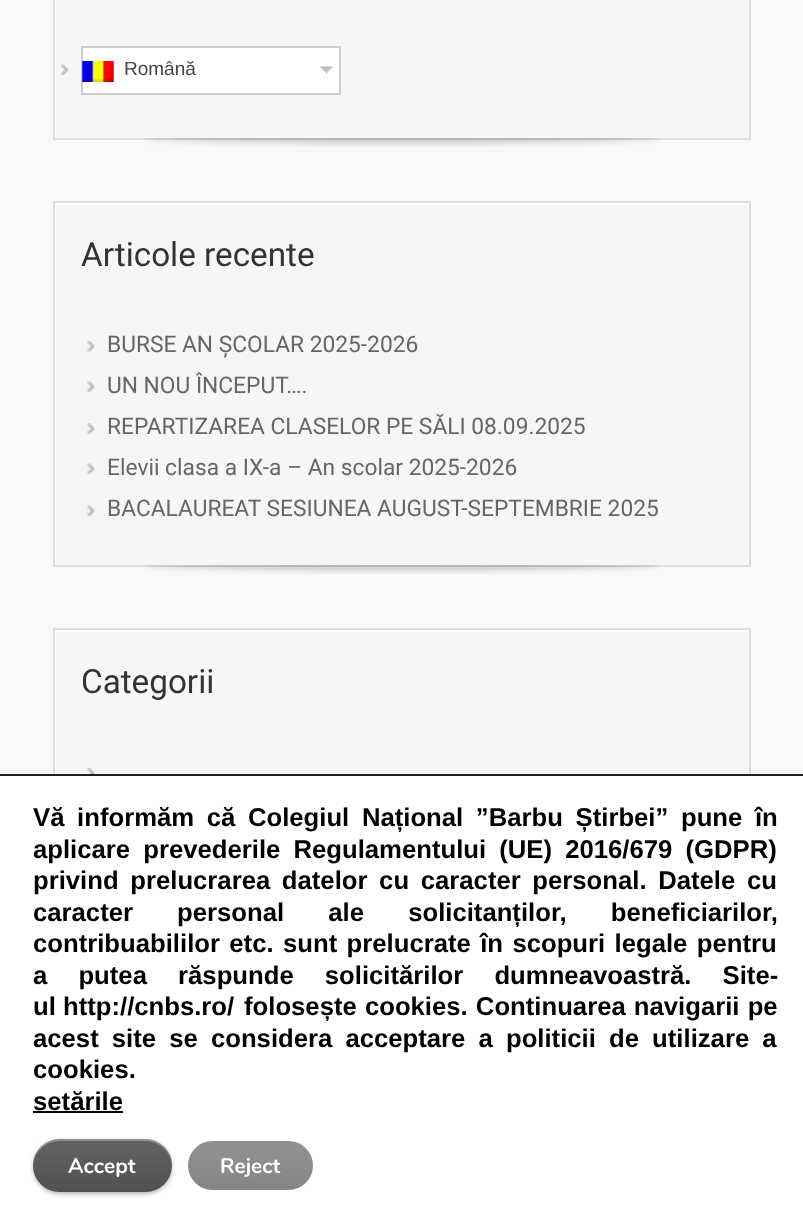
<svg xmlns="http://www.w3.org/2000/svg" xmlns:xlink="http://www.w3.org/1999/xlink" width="803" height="1223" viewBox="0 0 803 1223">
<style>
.cls-1{font:19px Liberation Sans;fill:#444444}
.cls-2{font:33.25px Roboto;fill:#333333}
.cls-3{font:22.75px Roboto;fill:#666666}
.cls-4{font:bold 25.7px Liberation Sans;fill:#000000}
.cls-5{font:bold 21px Nunito;fill:#ffffff}
</style>
<defs>
<clipPath id="clip1"><rect x="54" y="0" width="695" height="138"/></clipPath>
<clipPath id="clip2"><rect x="54" y="203" width="695" height="362"/></clipPath>
<clipPath id="clip3"><rect x="54" y="630" width="695" height="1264"/></clipPath>
<linearGradient id="g1" gradientUnits="userSpaceOnUse" x1="33" y1="1139" x2="33" y2="1192"><stop offset="0.2" stop-color="#606060"/><stop offset="1" stop-color="#505050"/></linearGradient>
<linearGradient id="g2" gradientUnits="userSpaceOnUse" x1="186" y1="1139" x2="186" y2="1192"><stop offset="0.2" stop-color="#909090"/><stop offset="1" stop-color="#858585"/></linearGradient>
</defs>
<rect width="100%" height="100%" fill="#f9f9f9"/>
<rect fill="#f6f6f6" x="56" y="0" width="693" height="138"/>
<g clip-path="url(#clip1)">
<path fill="#fefefe" fill-rule="evenodd" d="M-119-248H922V312H-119ZM56-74H751V140H56Z"/>
</g>
<rect fill="none" stroke="#e0dddd" stroke-width="2" x="54" y="-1" width="696" height="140"/>
<image xlink:href="image0.png" x="61" y="64" width="8" height="11"/>
<rect fill="#ffffff" x="83" y="48" width="256" height="45"/>
<image xlink:href="image1.png" x="320" y="66" width="13" height="8"/>
<rect fill="none" stroke="#cdcdcd" stroke-width="2" x="82" y="47" width="258" height="47"/>
<image xlink:href="image2.png" x="82" y="61" width="32" height="21"/>
<image xlink:href="image3.png" x="144" y="138" width="515" height="9"/>
<rect fill="#f6f6f6" x="56" y="205" width="693" height="360"/>
<g clip-path="url(#clip2)">
<path fill="#fefefe" fill-rule="evenodd" d="M-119 30H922V738H-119ZM56 205H751V567H56Z"/>
</g>
<rect fill="none" stroke="#e0dddd" stroke-width="2" x="54" y="202" width="696" height="364"/>
<image xlink:href="image4.png" x="87" y="341" width="8" height="11"/>
<image xlink:href="image5.png" x="87" y="381" width="8" height="11"/>
<image xlink:href="image5.png" x="87" y="423" width="8" height="11"/>
<image xlink:href="image6.png" x="87" y="463" width="8" height="11"/>
<image xlink:href="image6.png" x="87" y="505" width="8" height="11"/>
<image xlink:href="image3.png" x="144" y="565" width="515" height="9"/>
<rect fill="#f6f6f6" x="56" y="632" width="693" height="142"/>
<g clip-path="url(#clip3)">
<path fill="#fefefe" fill-rule="evenodd" d="M-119 457H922V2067H-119ZM56 632H751V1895H56Z"/>
</g>
<rect fill="none" stroke="#e0dddd" stroke-width="2" x="54" y="629" width="696" height="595"/>
<image xlink:href="image7.png" x="87" y="768" width="8" height="6"/>
<rect fill="#ffffff" x="0" y="776" width="803" height="447"/>
<rect fill="#202020" x="0" y="774" width="803" height="2"/>
<rect fill="#000000" x="33" y="1111" width="90" height="2"/>
<rect fill="#000000" fill-opacity="0.29" filter="blur(2px)" x="33" y="1141" width="139" height="53" rx="26.5"/>
<rect fill="url(#g1)" x="33" y="1139" width="139" height="53" rx="26.5"/>
<path fill="#ffffff" fill-opacity="0.3" d="M60 1141H145C160 1141 172 1153 172 1166C172 1151 160 1139 146 1139H60C45 1139 33 1151 33 1166C33 1153 45 1141 60 1141Z"/>
<rect fill="url(#g2)" stroke="#ffffff" stroke-width="2" x="187" y="1140" width="127" height="51" rx="25.5"/>
<text class="cls-1" x="124" y="75">Română</text>
<text class="cls-2" x="81" y="266">Articole recente</text>
<text class="cls-3"><tspan x="107" y="352">BURSE AN ȘCOLAR 2025-2026</tspan><tspan x="107" y="393">UN NOU ÎNCEPUT….</tspan><tspan x="107" y="434">REPARTIZAREA CLASELOR PE SĂLI 08.09.2025</tspan><tspan x="107" y="475">Elevii clasa a IX-a – An scolar 2025-2026</tspan><tspan x="107" y="516">BACALAUREAT SESIUNEA AUGUST-SEPTEMBRIE 2025</tspan></text>
<text class="cls-2" x="81" y="693">Categorii</text>
<text class="cls-4"><tspan x="33" y="826" word-spacing="5.5">Vă informăm că Colegiul Național ”Barbu Știrbei” pune în</tspan><tspan x="33" y="858" word-spacing="6">aplicare prevederile Regulamentului (UE) 2016/679 (GDPR)</tspan><tspan x="33" y="889" word-spacing="4.5">privind prelucrarea datelor cu caracter personal. Datele cu</tspan><tspan x="33" y="921" word-spacing="37">caracter personal ale solicitanților, beneficiarilor,</tspan><tspan x="33" y="952" word-spacing="2.25">contribuabililor etc. sunt prelucrate în scopuri legale pentru</tspan><tspan x="33" y="984" word-spacing="24">a putea răspunde solicitărilor dumneavoastră. Site-</tspan><tspan x="33" y="1015">ul http://cnbs.ro/</tspan></text>
<text class="cls-4" x="244" y="1015" word-spacing="1">folosește cookies. Continuarea navigarii pe</text>
<text class="cls-4"><tspan x="33" y="1047" word-spacing="6">acest site se considera acceptare a politicii de utilizare a</tspan><tspan x="33" y="1078">cookies.</tspan><tspan x="33" y="1110">setările</tspan></text>
<text class="cls-5" x="68" y="1173">Accept</text>
<text class="cls-5" x="220" y="1173">Reject</text>
</svg>
